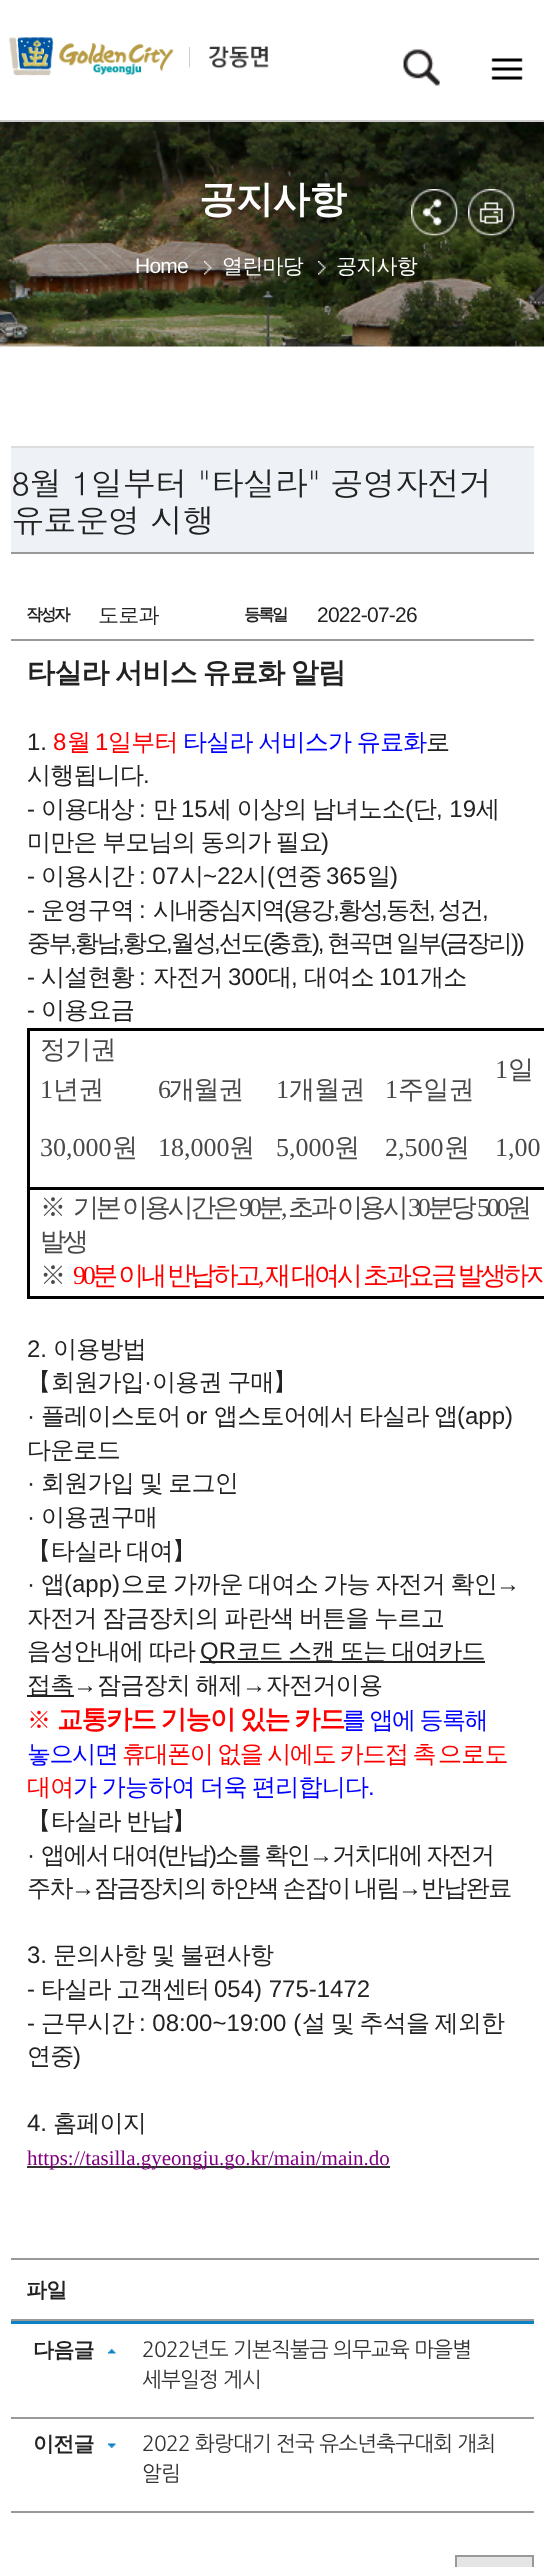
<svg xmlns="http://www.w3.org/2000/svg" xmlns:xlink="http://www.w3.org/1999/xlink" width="544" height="2567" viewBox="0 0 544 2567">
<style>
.cls-1{font:bold 37.5px WenQuanYi Zen Hei;letter-spacing:-0.75px;fill:#ffffff}
.cls-2{font:21px Liberation Sans;letter-spacing:-0.75px;fill:#ffffff}
.cls-3{font:500 21px WenQuanYi Zen Hei;letter-spacing:-0.75px;fill:#ffffff}
.cls-4{font:33px Dotum;letter-spacing:-0.75px;fill:#222222}
.cls-5{font:bold 16.5px WenQuanYi Zen Hei;letter-spacing:-2.5px;fill:#222222}
.cls-6{font:500 21px WenQuanYi Zen Hei;letter-spacing:-0.75px;fill:#222222}
.cls-7{font:21px Liberation Sans;letter-spacing:-0.75px;fill:#222222}
.cls-8{font:bold 28px WenQuanYi Zen Hei;letter-spacing:-0.75px;fill:#222222}
.cls-9{font:24px Liberation Sans;fill:#222222}
.cls-10{font:24px Liberation Sans;fill:#ff0000}
.cls-11{font:500 24px WenQuanYi Zen Hei;letter-spacing:-0.75px;fill:#ff0000}
.cls-12{font:500 24px WenQuanYi Zen Hei;letter-spacing:-0.75px;fill:#0000ff}
.cls-13{font:500 24px WenQuanYi Zen Hei;letter-spacing:-0.75px;fill:#222222}
.cls-14{font:500 24px WenQuanYi Zen Hei;letter-spacing:-2.25px;fill:#222222}
.cls-15{font:24px Liberation Sans;letter-spacing:-2.25px;fill:#222222}
.cls-16{font:500 26px WenQuanYi Zen Hei;letter-spacing:-0.75px;fill:#494949}
.cls-17{font:26px Liberation Serif;fill:#494949}
.cls-18{font:26px Liberation Serif;letter-spacing:-1.4px;fill:#494949}
.cls-19{font:500 26px WenQuanYi Zen Hei;letter-spacing:-1.4px;fill:#494949}
.cls-20{font:500 26px WenQuanYi Zen Hei;fill:#494949}
.cls-21{font:500 26px WenQuanYi Zen Hei;letter-spacing:-3.25px;fill:#494949}
.cls-22{font:26px Liberation Serif;letter-spacing:-3.25px;fill:#494949}
.cls-23{font:26px Liberation Serif;letter-spacing:-3.25px;fill:#ff0000}
.cls-24{font:500 26px WenQuanYi Zen Hei;letter-spacing:-3.25px;fill:#ff0000}
.cls-25{font:500 24px WenQuanYi Zen Hei;fill:#222222}
.cls-26{font:24px Liberation Serif;fill:#222222}
.cls-27{font:500 24px WenQuanYi Zen Hei;fill:#ff0000}
.cls-28{font:bold 26px WenQuanYi Zen Hei;letter-spacing:-1.4px;fill:#ff0000}
.cls-29{font:500 24px WenQuanYi Zen Hei;letter-spacing:-1.4px;fill:#0000ff}
.cls-30{font:500 24px WenQuanYi Zen Hei;letter-spacing:-1.4px;fill:#ff0000}
.cls-31{font:24px Liberation Sans;fill:#0000ff}
.cls-32{font:500 24px WenQuanYi Zen Hei;letter-spacing:-1.6px;fill:#222222}
.cls-33{font:24px Liberation Sans;letter-spacing:-1.6px;fill:#222222}
.cls-34{font:24px Liberation Serif;letter-spacing:-1.6px;fill:#222222}
.cls-35{font:21px Liberation Serif;fill:#800080}
.cls-36{font:bold 21px WenQuanYi Zen Hei;letter-spacing:-0.75px;fill:#222222}
.cls-37{font:21px NanumGothic;letter-spacing:-0.75px;fill:#333333}
</style>
<rect width="100%" height="100%" fill="#ffffff"/>
<image xlink:href="image0.png" x="9" y="37" width="260" height="39"/>
<image xlink:href="image1.png" x="403" y="49" width="37" height="37"/>
<image xlink:href="image2.png" x="491" y="58" width="32" height="22"/>
<image xlink:href="image3.png" x="0" y="122" width="544" height="225"/>
<rect fill="#cccccc" x="0" y="120" width="544" height="2"/>
<image xlink:href="image4.png" x="411" y="189" width="47" height="47"/>
<image xlink:href="image5.png" x="468" y="189" width="47" height="47"/>
<image xlink:href="image6.png" x="204" y="261" width="8" height="14"/>
<image xlink:href="image7.png" x="318" y="261" width="8" height="14"/>
<rect fill="#eef2f6" x="11" y="448" width="523" height="104"/>
<rect fill="#dddddd" x="11" y="446" width="523" height="2"/>
<rect fill="#999999" x="11" y="552" width="523" height="2"/>
<rect fill="#999999" x="11" y="639" width="523" height="2"/>
<rect fill="#999999" x="11" y="2258" width="528" height="2"/>
<rect fill="#000000" x="27" y="1028" width="517" height="3"/>
<rect fill="#000000" x="27" y="1296" width="517" height="3"/>
<rect fill="#000000" x="27" y="1187" width="3" height="112"/>
<rect fill="#000000" x="27" y="1187" width="517" height="3"/>
<rect fill="#000000" x="27" y="1070" width="3" height="120"/>
<rect fill="#000000" x="27" y="1028" width="3" height="45"/>
<rect fill="#222222" x="200" y="1661" width="285" height="2"/>
<rect fill="#222222" x="27" y="1695" width="47" height="2"/>
<rect fill="#333333" x="27" y="2166" width="363" height="2"/>
<rect fill="#999999" x="11" y="2319" width="523" height="2"/>
<rect fill="#0b82c6" x="11" y="2321" width="523" height="3"/>
<rect fill="#999999" x="11" y="2417" width="523" height="2"/>
<image xlink:href="image8.png" x="108" y="2349" width="8" height="5"/>
<rect fill="#999999" x="11" y="2511" width="523" height="2"/>
<image xlink:href="image9.png" x="108" y="2443" width="8" height="5"/>
<rect fill="#e5e5e5" stroke="#999999" stroke-width="2" x="456" y="2556" width="77" height="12"/>
<text class="cls-1" x="199" y="212">공지사항</text>
<text class="cls-2" x="135" y="273">Home</text>
<text class="cls-3" x="222" y="273">열린마당</text>
<text class="cls-3" x="336" y="273">공지사항</text>
<text class="cls-4"><tspan x="11" y="496">8월 1일부터 "타실라" 공영자전거</tspan><tspan x="11" y="533">유료운영 시행</tspan></text>
<text class="cls-5" x="26" y="620">작성자</text>
<text class="cls-6" x="98" y="622">도로과</text>
<text class="cls-5" x="244" y="620">등록일</text>
<text class="cls-7" x="317" y="622">2022-07-26</text>
<text class="cls-8" x="27" y="682" word-spacing="-1.5">타실라 서비스 유료화 알림</text>
<text class="cls-9" x="27" y="750">1.</text>
<text class="cls-10" x="53" y="750">8</text>
<text class="cls-11" x="67" y="750">월</text>
<text class="cls-10" x="95" y="750">1</text>
<text class="cls-11" x="108" y="750">일부터</text>
<text class="cls-12" x="183" y="750" word-spacing="-1">타실라 서비스가 유료화</text>
<text class="cls-13" x="426" y="750">로</text>
<text class="cls-13" x="27" y="783">시행됩니다</text>
<text class="cls-9" x="143" y="783">.</text>
<text class="cls-9" x="27" y="817">-</text>
<text class="cls-13" x="41" y="817">이용대상</text>
<text class="cls-9" x="139" y="817">:</text>
<text class="cls-13" x="153" y="817">만</text>
<text class="cls-9" x="181" y="817">15</text>
<text class="cls-13" x="208" y="817" word-spacing="-1">세 이상의 남녀노소</text>
<text class="cls-9" x="405" y="817">(</text>
<text class="cls-13" x="413" y="817">단</text>
<text class="cls-9" x="436" y="817">, 19</text>
<text class="cls-13" x="476" y="817">세</text>
<text class="cls-13" x="27" y="850" word-spacing="-1">미만은 부모님의 동의가 필요</text>
<text class="cls-9" x="321" y="850">)</text>
<text class="cls-9" x="27" y="884">-</text>
<text class="cls-13" x="41" y="884">이용시간</text>
<text class="cls-9" x="139" y="884">: 07</text>
<text class="cls-13" x="180" y="884">시</text>
<text class="cls-9" x="203" y="884">~22</text>
<text class="cls-13" x="243" y="884">시</text>
<text class="cls-9" x="267" y="884">(</text>
<text class="cls-13" x="275" y="884">연중</text>
<text class="cls-9" x="326" y="884">365</text>
<text class="cls-13" x="367" y="884">일</text>
<text class="cls-9" x="390" y="884">)</text>
<text class="cls-9" x="27" y="918">-</text>
<text class="cls-13" x="41" y="918">운영구역</text>
<text class="cls-9" x="139" y="918">:</text>
<text class="cls-14" x="153" y="918">시내중심지역</text>
<text class="cls-15" x="284" y="918">(</text>
<text class="cls-14" x="289" y="918">용강</text>
<text class="cls-14" x="338" y="918">황성</text>
<text class="cls-14" x="386" y="918">동천</text>
<text class="cls-14" x="438" y="918">성건</text>
<text class="cls-15" x="333" y="918">,</text>
<text class="cls-15" x="381" y="918">,</text>
<text class="cls-15" x="429" y="918">,</text>
<text class="cls-15" x="482" y="918">,</text>
<text class="cls-14" x="27" y="951">중부</text>
<text class="cls-15" x="70" y="951">,</text>
<text class="cls-14" x="75" y="951">황남</text>
<text class="cls-15" x="118" y="951">,</text>
<text class="cls-14" x="123" y="951">황오</text>
<text class="cls-15" x="166" y="951">,</text>
<text class="cls-14" x="171" y="951">월성</text>
<text class="cls-15" x="214" y="951">,</text>
<text class="cls-14" x="219" y="951">선도</text>
<text class="cls-15" x="263" y="951">(</text>
<text class="cls-14" x="268" y="951">충효</text>
<text class="cls-15" x="312" y="951">),</text>
<text class="cls-14" x="327" y="951" word-spacing="-1">현곡면 일부</text>
<text class="cls-15" x="440" y="951">(</text>
<text class="cls-14" x="445" y="951">금장리</text>
<text class="cls-15" x="511" y="951">))</text>
<text class="cls-9" x="27" y="985">-</text>
<text class="cls-13" x="41" y="985">시설현황</text>
<text class="cls-9" x="139" y="985">:</text>
<text class="cls-13" x="153" y="985">자전거</text>
<text class="cls-9" x="228" y="985">300</text>
<text class="cls-13" x="268" y="985">대</text>
<text class="cls-13" x="304" y="985">대여소</text>
<text class="cls-9" x="379" y="985">101</text>
<text class="cls-13" x="420" y="985">개소</text>
<text class="cls-9" x="291" y="985">,</text>
<text class="cls-9" x="27" y="1018">-</text>
<text class="cls-13" x="41" y="1018">이용요금</text>
<text class="cls-16" x="40" y="1058">정기권</text>
<text class="cls-17" x="495" y="1078">1</text>
<text class="cls-16" x="508" y="1078">일</text>
<text class="cls-17" x="40" y="1098">1</text>
<text class="cls-16" x="53" y="1098">년권</text>
<text class="cls-18" x="158" y="1098">6</text>
<text class="cls-19" x="169" y="1098">개월권</text>
<text class="cls-17" x="276" y="1098">1</text>
<text class="cls-16" x="289" y="1098">개월권</text>
<text class="cls-17" x="385" y="1098">1</text>
<text class="cls-16" x="398" y="1098">주일권</text>
<text class="cls-17" x="40" y="1156">30,000</text>
<text class="cls-16" x="112" y="1156">원</text>
<text class="cls-17" x="158" y="1156">18,000</text>
<text class="cls-16" x="229" y="1156">원</text>
<text class="cls-17" x="276" y="1156">5,000</text>
<text class="cls-16" x="334" y="1156">원</text>
<text class="cls-17" x="385" y="1156">2,500</text>
<text class="cls-16" x="444" y="1156">원</text>
<text class="cls-17" x="495" y="1156">1,00</text>
<text class="cls-20" x="40" y="1216">※</text>
<text class="cls-21" x="73" y="1216" word-spacing="-1">기본 이용시간은</text>
<text class="cls-22" x="239" y="1216">90</text>
<text class="cls-21" x="258" y="1216">분</text>
<text class="cls-22" x="281" y="1216">,</text>
<text class="cls-21" x="288" y="1216" word-spacing="-1">초과 이용시</text>
<text class="cls-22" x="408" y="1216">30</text>
<text class="cls-21" x="428" y="1216">분당</text>
<text class="cls-22" x="477" y="1216">500</text>
<text class="cls-21" x="506" y="1216" word-spacing="-1">원</text>
<text class="cls-21" x="40" y="1250">발생</text>
<text class="cls-20" x="40" y="1284">※</text>
<text class="cls-23" x="73" y="1284">90</text>
<text class="cls-24" x="92" y="1284" word-spacing="-1">분 이내 반납하고</text>
<text class="cls-23" x="258" y="1284">,</text>
<text class="cls-24" x="265" y="1284" word-spacing="-1">재 대여시 초과요금 발생하지</text>
<text class="cls-9" x="27" y="1357">2.</text>
<text class="cls-13" x="53" y="1357">이용방법</text>
<text class="cls-25" x="27" y="1390">【</text>
<text class="cls-13" x="51" y="1390">회원가입</text>
<text class="cls-9" x="144" y="1390">·</text>
<text class="cls-13" x="152" y="1390" word-spacing="-1">이용권 구매</text>
<text class="cls-25" x="273" y="1390">】</text>
<text class="cls-9" x="27" y="1424">·</text>
<text class="cls-13" x="41" y="1424">플레이스토어</text>
<text class="cls-9" x="186" y="1424">or</text>
<text class="cls-13" x="214" y="1424" word-spacing="-1">앱스토어에서 타실라 앱</text>
<text class="cls-9" x="457" y="1424">(app)</text>
<text class="cls-13" x="27" y="1458">다운로드</text>
<text class="cls-9" x="27" y="1491">·</text>
<text class="cls-13" x="41" y="1491" word-spacing="-1">회원가입 및 로그인</text>
<text class="cls-9" x="27" y="1525">·</text>
<text class="cls-13" x="41" y="1525">이용권구매</text>
<text class="cls-25" x="27" y="1559">【</text>
<text class="cls-13" x="51" y="1559" word-spacing="-1">타실라 대여</text>
<text class="cls-25" x="172" y="1559">】</text>
<text class="cls-9" x="27" y="1592">·</text>
<text class="cls-13" x="41" y="1592">앱</text>
<text class="cls-9" x="64" y="1592">(app)</text>
<text class="cls-13" x="121" y="1592" word-spacing="-1">으로 가까운 대여소 가능 자전거 확인</text>
<text class="cls-26" x="496" y="1592">→</text>
<text class="cls-13"><tspan x="27" y="1626" word-spacing="-1">자전거 잠금장치의 파란색 버튼을 누르고</tspan><tspan x="27" y="1659" word-spacing="-1">음성안내에 따라</tspan></text>
<text class="cls-9" x="200" y="1659">QR</text>
<text class="cls-13" x="236" y="1659" word-spacing="-1">코드 스캔 또는 대여카드</text>
<text class="cls-13" x="27" y="1693">접촉</text>
<text class="cls-26" x="73" y="1693">→</text>
<text class="cls-13" x="97" y="1693" word-spacing="-1">잠금장치 해제</text>
<text class="cls-26" x="242" y="1693">→</text>
<text class="cls-13" x="266" y="1693">자전거이용</text>
<text class="cls-27" x="27" y="1728">※</text>
<text class="cls-28" x="57" y="1728" word-spacing="-1">교통카드 기능이 있는 카드</text>
<text class="cls-29" x="342" y="1728" word-spacing="-1">를 앱에 등록해</text>
<text class="cls-29" x="27" y="1762">놓으시면</text>
<text class="cls-30" x="122" y="1762" word-spacing="-1">휴대폰이 없을 시에도 카드접 촉</text>
<text class="cls-11" x="438" y="1762">으로도</text>
<text class="cls-11" x="27" y="1795">대여</text>
<text class="cls-12" x="73" y="1795" word-spacing="-1">가 가능하여 더욱 편리합니다</text>
<text class="cls-31" x="368" y="1795">.</text>
<text class="cls-25" x="27" y="1829">【</text>
<text class="cls-13" x="51" y="1829" word-spacing="-1">타실라 반납</text>
<text class="cls-25" x="172" y="1829">】</text>
<text class="cls-9" x="27" y="1863">·</text>
<text class="cls-32" x="41" y="1863" word-spacing="-1">앱에서 대여</text>
<text class="cls-33" x="158" y="1863">(</text>
<text class="cls-32" x="164" y="1863">반납</text>
<text class="cls-33" x="209" y="1863">)</text>
<text class="cls-32" x="215" y="1863" word-spacing="-1">소를 확인</text>
<text class="cls-34" x="309" y="1863">→</text>
<text class="cls-32" x="332" y="1863" word-spacing="-1">거치대에 자전거</text>
<text class="cls-32" x="27" y="1896">주차</text>
<text class="cls-34" x="71" y="1896">→</text>
<text class="cls-32" x="94" y="1896" word-spacing="-1">잠금장치의 하얀색 손잡이 내림</text>
<text class="cls-34" x="398" y="1896">→</text>
<text class="cls-32" x="421" y="1896">반납완료</text>
<text class="cls-9" x="27" y="1963">3.</text>
<text class="cls-13" x="53" y="1963" word-spacing="-1">문의사항 및 불편사항</text>
<text class="cls-9" x="27" y="1997">-</text>
<text class="cls-13" x="41" y="1997" word-spacing="-1">타실라 고객센터</text>
<text class="cls-9" x="214" y="1997">054) 775-1472</text>
<text class="cls-9" x="27" y="2031">-</text>
<text class="cls-13" x="41" y="2031">근무시간</text>
<text class="cls-9" x="139" y="2031">: 08:00~19:00 (</text>
<text class="cls-13" x="302" y="2031" word-spacing="-1">설 및 추석을 제외한</text>
<text class="cls-13" x="27" y="2064">연중</text>
<text class="cls-9" x="73" y="2064">)</text>
<text class="cls-9" x="27" y="2131">4.</text>
<text class="cls-13" x="53" y="2131">홈페이지</text>
<text class="cls-35" x="27" y="2165">https://tasilla.gyeongju.go.kr/main/main.do</text>
<text class="cls-36" x="26" y="2297">파일</text>
<text class="cls-36" x="33" y="2357">다음글</text>
<text class="cls-37"><tspan x="142" y="2357">2022년도 기본직불금 의무교육 마을별</tspan><tspan x="142" y="2387">세부일정 게시</tspan></text>
<text class="cls-36" x="33" y="2451">이전글</text>
<text class="cls-37"><tspan x="142" y="2451">2022 화랑대기 전국 유소년축구대회 개최</tspan><tspan x="142" y="2481">알림</tspan></text>
</svg>
